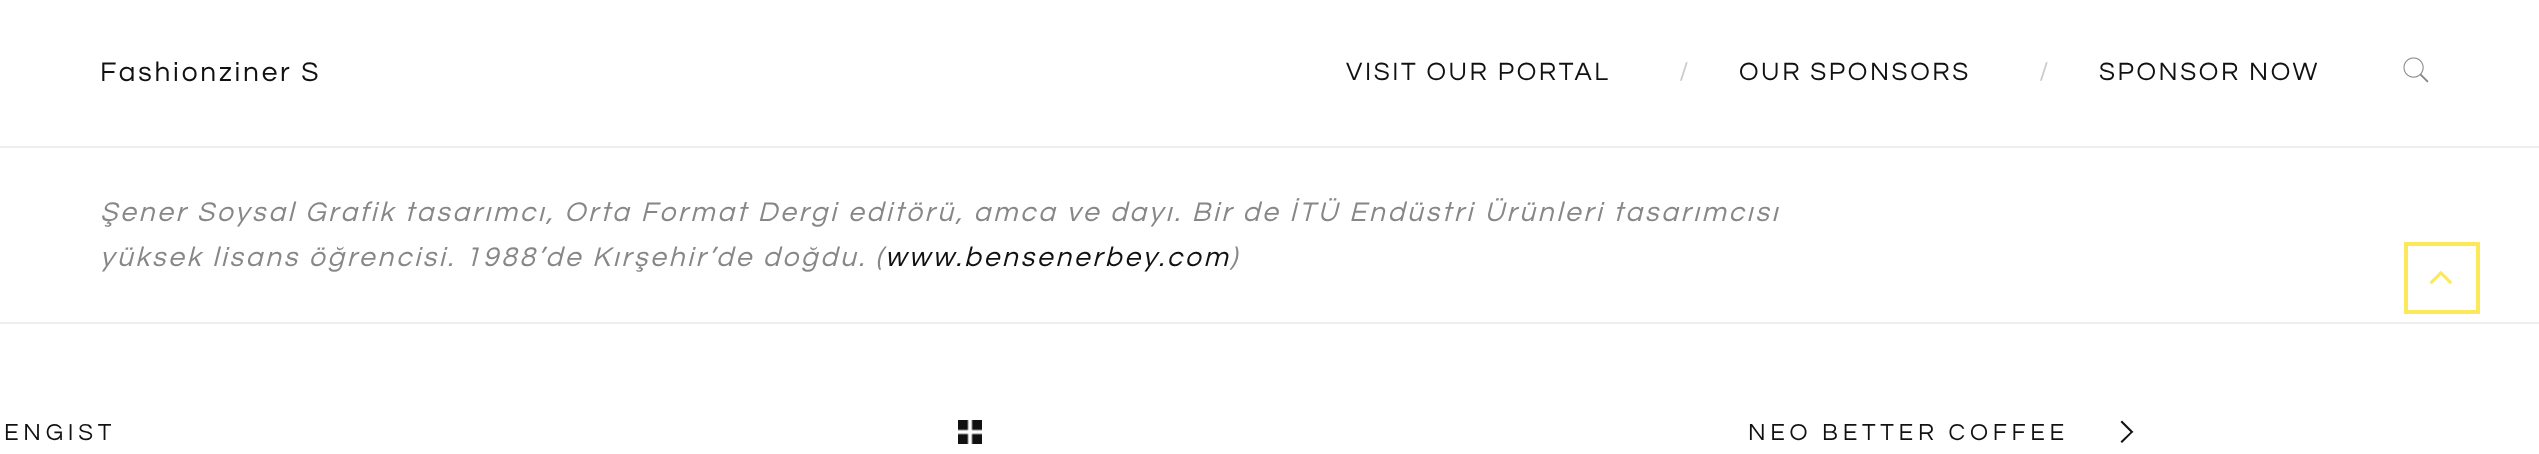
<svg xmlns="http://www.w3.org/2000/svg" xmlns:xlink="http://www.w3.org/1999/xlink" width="2539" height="454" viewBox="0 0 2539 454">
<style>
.cls-1{font:28px Questrial;letter-spacing:2.8px;fill:#111111}
.cls-2{font:26px Questrial;letter-spacing:2.6px;fill:#111111}
.cls-3{font:26px Questrial;letter-spacing:2.8px;fill:#cccccc}
.cls-4{font:italic 28px Questrial;letter-spacing:2.8px;fill:#878787}
.cls-5{font:italic 28px Questrial;letter-spacing:2.8px;fill:#111111}
.cls-6{font:24px Questrial;letter-spacing:4.75px;fill:#111111}
</style>
<rect width="100%" height="100%" fill="#ffffff"/>
<rect fill="#eeeeee" x="0" y="146" width="2539" height="2"/>
<image xlink:href="image0.png" x="2403" y="57" width="26" height="26"/>
<rect fill="#eeeeee" x="0" y="322" width="2539" height="2"/>
<image xlink:href="image1.png" x="958" y="420" width="24" height="24"/>
<path fill="#111111" d="M2132 433L2133.5 432L2122 420.5L2120.5 422L2130.5 432L2120.5 441.5L2122 443Z"/>
<rect fill="none" stroke="#fde85a" stroke-width="4" x="2406" y="244" width="72" height="68"/>
<image xlink:href="image2.png" x="2429" y="271" width="23" height="13"/>
<text class="cls-1" x="100" y="81">Fashionziner S</text>
<text class="cls-2" x="1346" y="80">VISIT OUR PORTAL</text>
<text class="cls-3" x="1679" y="80">/</text>
<text class="cls-2" x="1739" y="80">OUR SPONSORS</text>
<text class="cls-3" x="2039" y="80">/</text>
<text class="cls-2" x="2099" y="80">SPONSOR NOW</text>
<text class="cls-4"><tspan x="100" y="221" word-spacing="0.1">Şener Soysal Grafik tasarımcı, Orta Format Dergi editörü, amca ve dayı. Bir de İTÜ Endüstri Ürünleri tasarımcısı</tspan><tspan x="100" y="266">yüksek lisans öğrencisi. 1988’de Kırşehir’de doğdu. (</tspan></text>
<text class="cls-5" x="885" y="266">www.bensenerbey.com</text>
<text class="cls-4" x="1230" y="266">)</text>
<text class="cls-6" x="4" y="440">ENGIST</text>
<text class="cls-6" x="1748" y="440">NEO BETTER COFFEE</text>
</svg>
